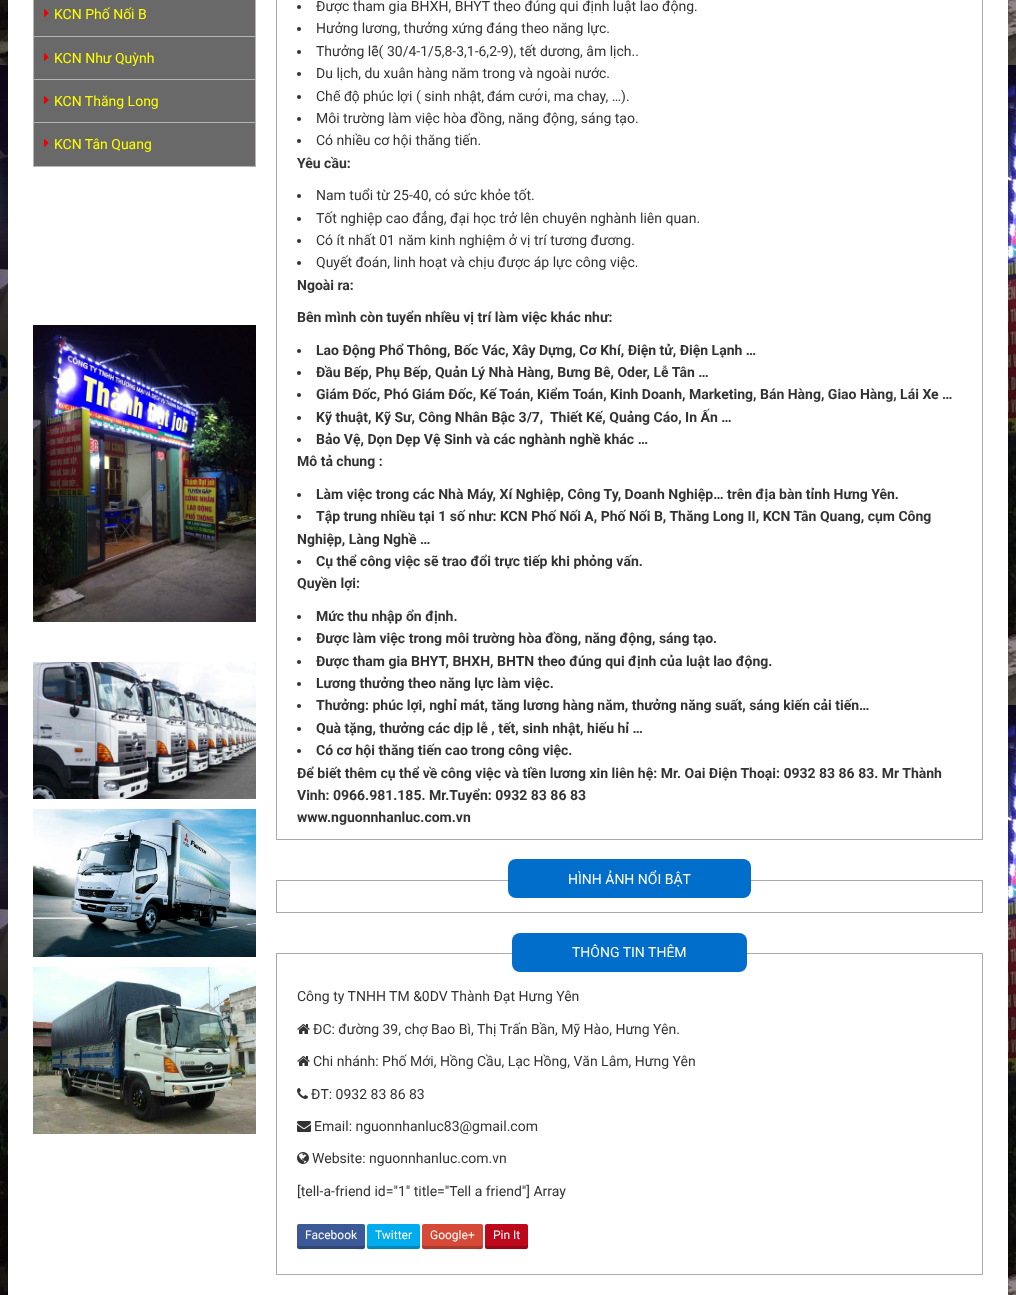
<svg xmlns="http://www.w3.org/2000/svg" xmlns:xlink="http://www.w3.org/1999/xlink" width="1016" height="1295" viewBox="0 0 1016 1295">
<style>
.cls-1{font:14px Roboto;fill:#ffff00}
.cls-2{font:14px Roboto;fill:#333333}
.cls-3{font:14px Liberation Sans;fill:#333333}
.cls-4{font:bold 14px Roboto;fill:#333333}
.cls-5{font:14px Roboto;fill:#ffffff}
.cls-6{font:12px Roboto;fill:#ffffff}
</style>
<rect width="100%" height="100%" fill="#ffffff"/>
<image xlink:href="image0.png" x="0" y="0" width="1016" height="1295"/>
<rect fill="#ffffff" x="8" y="0" width="1000" height="1295"/>
<rect fill="none" stroke="#b6b3b3" x="33.5" y="-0.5" width="222" height="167"/>
<rect fill="#696969" x="34" y="0" width="221" height="166"/>
<image xlink:href="image1.png" x="44" y="9" width="5" height="8"/>
<image xlink:href="image1.png" x="44" y="53" width="5" height="8"/>
<rect fill="#b6b3b3" x="34" y="36" width="221" height="1"/>
<image xlink:href="image1.png" x="44" y="96" width="5" height="8"/>
<rect fill="#b6b3b3" x="34" y="79" width="221" height="1"/>
<image xlink:href="image1.png" x="44" y="139" width="5" height="8"/>
<rect fill="#b6b3b3" x="34" y="122" width="221" height="1"/>
<image xlink:href="image2.png" x="33" y="325" width="223" height="297"/>
<image xlink:href="image3.png" x="33" y="662" width="223" height="137"/>
<image xlink:href="image4.png" x="33" y="809" width="223" height="148"/>
<image xlink:href="image5.png" x="33" y="967" width="223" height="167"/>
<rect fill="none" stroke="#aaaaaa" x="276.5" y="-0.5" width="706" height="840"/>
<circle fill="#333333" cx="299" cy="7" r="2"/>
<circle fill="#333333" cx="299" cy="29" r="2"/>
<circle fill="#333333" cx="299" cy="52" r="2"/>
<circle fill="#333333" cx="299" cy="74" r="2"/>
<circle fill="#333333" cx="299" cy="97" r="2"/>
<circle fill="#333333" cx="299" cy="119" r="2"/>
<circle fill="#333333" cx="299" cy="141" r="2"/>
<circle fill="#333333" cx="299" cy="196" r="2"/>
<circle fill="#333333" cx="299" cy="219" r="2"/>
<circle fill="#333333" cx="299" cy="241" r="2"/>
<circle fill="#333333" cx="299" cy="263" r="2"/>
<circle fill="#333333" cx="299" cy="351" r="2"/>
<circle fill="#333333" cx="299" cy="373" r="2"/>
<circle fill="#333333" cx="299" cy="395" r="2"/>
<circle fill="#333333" cx="299" cy="418" r="2"/>
<circle fill="#333333" cx="299" cy="440" r="2"/>
<circle fill="#333333" cx="299" cy="495" r="2"/>
<circle fill="#333333" cx="299" cy="517" r="2"/>
<circle fill="#333333" cx="299" cy="562" r="2"/>
<circle fill="#333333" cx="299" cy="617" r="2"/>
<circle fill="#333333" cx="299" cy="639" r="2"/>
<circle fill="#333333" cx="299" cy="662" r="2"/>
<circle fill="#333333" cx="299" cy="684" r="2"/>
<circle fill="#333333" cx="299" cy="706" r="2"/>
<circle fill="#333333" cx="299" cy="729" r="2"/>
<circle fill="#333333" cx="299" cy="751" r="2"/>
<rect fill="none" stroke="#aaaaaa" x="276.5" y="880.5" width="706" height="32"/>
<rect fill="#006eca" x="508" y="859" width="243" height="39" rx="8"/>
<rect fill="none" stroke="#aaaaaa" x="276.5" y="953.5" width="706" height="321"/>
<rect fill="#006eca" x="512" y="933" width="235" height="39" rx="8"/>
<image xlink:href="image6.png" x="297" y="1024" width="13" height="10"/>
<image xlink:href="image6.png" x="297" y="1056" width="13" height="10"/>
<image xlink:href="image7.png" x="297" y="1088" width="11" height="11"/>
<image xlink:href="image8.png" x="297" y="1121" width="14" height="11"/>
<image xlink:href="image9.png" x="297" y="1152" width="12" height="12"/>
<rect fill="#3b5997" x="297" y="1224" width="68" height="25" rx="2"/>
<path fill="#000000" fill-opacity="0.2" d="M297 1244C297 1252 300 1249 310 1249H352C362 1249 365 1252 365 1244C365 1245 364 1246 363 1246H299C298 1246 297 1245 297 1244Z"/>
<rect fill="#00aced" x="367" y="1224" width="53" height="25" rx="2"/>
<path fill="#000000" fill-opacity="0.2" d="M367 1244C367 1251 369 1249 377 1249H410C418 1249 420 1251 420 1244L419 1246H368Z"/>
<rect fill="#d64937" x="422" y="1224" width="61" height="25" rx="2"/>
<path fill="#000000" fill-opacity="0.2" d="M422 1244C422 1252 424 1249 434 1249H472C481 1249 483 1252 483 1244C483 1245 482 1246 481 1246H424C423 1246 422 1245 422 1244Z"/>
<rect fill="#bd081c" x="485" y="1224" width="43" height="25" rx="2"/>
<path fill="#000000" fill-opacity="0.2" d="M485 1244C485 1251 486 1249 494 1249H520C527 1249 528 1251 528 1244C528 1245 527 1246 526 1246H487C486 1246 485 1245 485 1244Z"/>
<text class="cls-1" x="54" y="19">KCN Phố Nối B</text>
<text class="cls-1" x="54" y="63">KCN Như Quỳnh</text>
<text class="cls-1" x="54" y="106">KCN Thăng Long</text>
<text class="cls-1" x="54" y="149">KCN Tân Quang</text>
<text class="cls-2"><tspan x="316" y="11">Được tham gia BHXH, BHYT theo đúng qui định luật lao động.</tspan><tspan x="316" y="33">Hưởng lương, thưởng xứng đáng theo năng lực.</tspan><tspan x="316" y="56">Thưởng lễ( 30/4-1/5,8-3,1-6,2-9), tết dương, âm lịch..</tspan><tspan x="316" y="78">Du lịch, du xuân hàng năm trong và ngoài nước.</tspan><tspan x="316" y="101">Ch</tspan></text>
<text class="cls-3" x="333" y="101">ế</text>
<text class="cls-3" x="344" y="101">độ</text>
<text class="cls-2" x="363" y="101">phúc l</text>
<text class="cls-3" x="400" y="101">ợ</text>
<text class="cls-2" x="409" y="101">i ( sinh nhật,</text>
<text class="cls-3" x="487" y="101">đ</text>
<text class="cls-2" x="495" y="101">ám c</text>
<text class="cls-3" x="525" y="101">ướ</text>
<text class="cls-2" x="544" y="101">i, ma chay, …).</text>
<text class="cls-2"><tspan x="316" y="123">Môi trường làm việc hòa đồng, năng động, sáng tạo.</tspan><tspan x="316" y="145">Có nhiều cơ hội thăng tiến.</tspan></text>
<text class="cls-4" x="297" y="168">Yêu cầu:</text>
<text class="cls-2"><tspan x="316" y="200">Nam tuổi từ 25-40, có sức khỏe tốt.</tspan><tspan x="316" y="223">Tốt nghiệp cao đẳng, đại học trở lên chuyên nghành liên quan.</tspan><tspan x="316" y="245">Có ít nhất 01 năm kinh nghiệm ở vị trí tương đương.</tspan><tspan x="316" y="267">Quyết đoán, linh hoạt và chịu được áp lực công việc.</tspan></text>
<text class="cls-4" x="297" y="290">Ngoài ra:</text>
<text class="cls-4" x="297" y="322">Bên mình còn tuyển nhiều vị trí làm việc khác như:</text>
<text class="cls-4" xml:space="preserve"><tspan x="316" y="355">Lao Động Phổ Thông, Bốc Vác, Xây Dựng, Cơ Khí, Điện tử, Điện Lạnh …</tspan><tspan x="316" y="377">Đầu Bếp, Phụ Bếp, Quản Lý Nhà Hàng, Bưng Bê, Oder, Lễ Tân …</tspan><tspan x="316" y="399">Giám Đốc, Phó Giám Đốc, Kế Toán, Kiểm Toán, Kinh Doanh, Marketing, Bán Hàng, Giao Hàng, Lái Xe …</tspan><tspan x="316" y="422">Kỹ thuật, Kỹ Sư, Công Nhân Bậc 3/7,  Thiết Kế, Quảng Cáo, In Ấn …</tspan><tspan x="316" y="444">Bảo Vệ, Dọn Dẹp Vệ Sinh và các nghành nghề khác …</tspan></text>
<text class="cls-4" x="297" y="466">Mô tả chung :</text>
<text class="cls-4"><tspan x="316" y="499">Làm việc trong các Nhà Máy, Xí Nghiệp, Công Ty, Doanh Nghiệp… trên địa bàn tỉnh Hưng Yên.</tspan><tspan x="316" y="521">Tập trung nhiều tại 1 số như: KCN Phố Nối A, Phố Nối B, Thăng Long II, KCN Tân Quang, cụm Công</tspan></text>
<text class="cls-4" x="297" y="544">Nghiệp, Làng Nghề …</text>
<text class="cls-4" x="316" y="566">Cụ thể công việc sẽ trao đổi trực tiếp khi phỏng vấn.</text>
<text class="cls-4" x="297" y="588">Quyền lợi:</text>
<text class="cls-4"><tspan x="316" y="621">Mức thu nhập ổn định.</tspan><tspan x="316" y="643">Được làm việc trong môi trường hòa đồng, năng động, sáng tạo.</tspan><tspan x="316" y="666">Được tham gia BHYT, BHXH, BHTN theo đúng qui định của luật lao động.</tspan><tspan x="316" y="688">Lương thưởng theo năng lực làm việc.</tspan><tspan x="316" y="710">Thưởng: phúc lợi, nghỉ mát, tăng lương hàng năm, thưởng năng suất, sáng kiến cải tiến…</tspan><tspan x="316" y="733">Quà tặng, thưởng các dịp lễ , tết, sinh nhật, hiếu hỉ …</tspan><tspan x="316" y="755">Có cơ hội thăng tiến cao trong công việc.</tspan></text>
<text class="cls-4"><tspan x="297" y="778">Để biết thêm cụ thể về công việc và tiền lương xin liên hệ: Mr. Oai Điện Thoại: 0932 83 86 83. Mr Thành</tspan><tspan x="297" y="800">Vinh: 0966.981.185. Mr.Tuyển: 0932 83 86 83</tspan><tspan x="297" y="822">www.nguonnhanluc.com.vn</tspan></text>
<text class="cls-5" x="568" y="884">HÌNH ẢNH NỔI BẬT</text>
<text class="cls-5" x="572" y="957">THÔNG TIN THÊM</text>
<text class="cls-2" x="297" y="1001">Công ty TNHH TM &amp;0DV Thành Đạt Hưng Yên</text>
<text class="cls-2" x="313" y="1034">ĐC: đường 39, chợ Bao Bì, Thị Trấn Bần, Mỹ Hào, Hưng Yên.</text>
<text class="cls-2" x="313" y="1066">Chi nhánh: Phố Mới, Hồng Cầu, Lạc Hồng, Văn Lâm, Hưng Yên</text>
<text class="cls-2" x="311" y="1099">ĐT: 0932 83 86 83</text>
<text class="cls-2" x="314" y="1131">Email: nguonnhanluc83@gmail.com</text>
<text class="cls-2" x="312" y="1163">Website: nguonnhanluc.com.vn</text>
<text class="cls-2" x="297" y="1196">[tell-a-friend id="1" title="Tell a friend"] Array</text>
<text class="cls-6" x="305" y="1239">Facebook</text>
<text class="cls-6" x="375" y="1239">Twitter</text>
<text class="cls-6" x="430" y="1239">Google+</text>
<text class="cls-6" x="493" y="1239">Pin It</text>
</svg>
